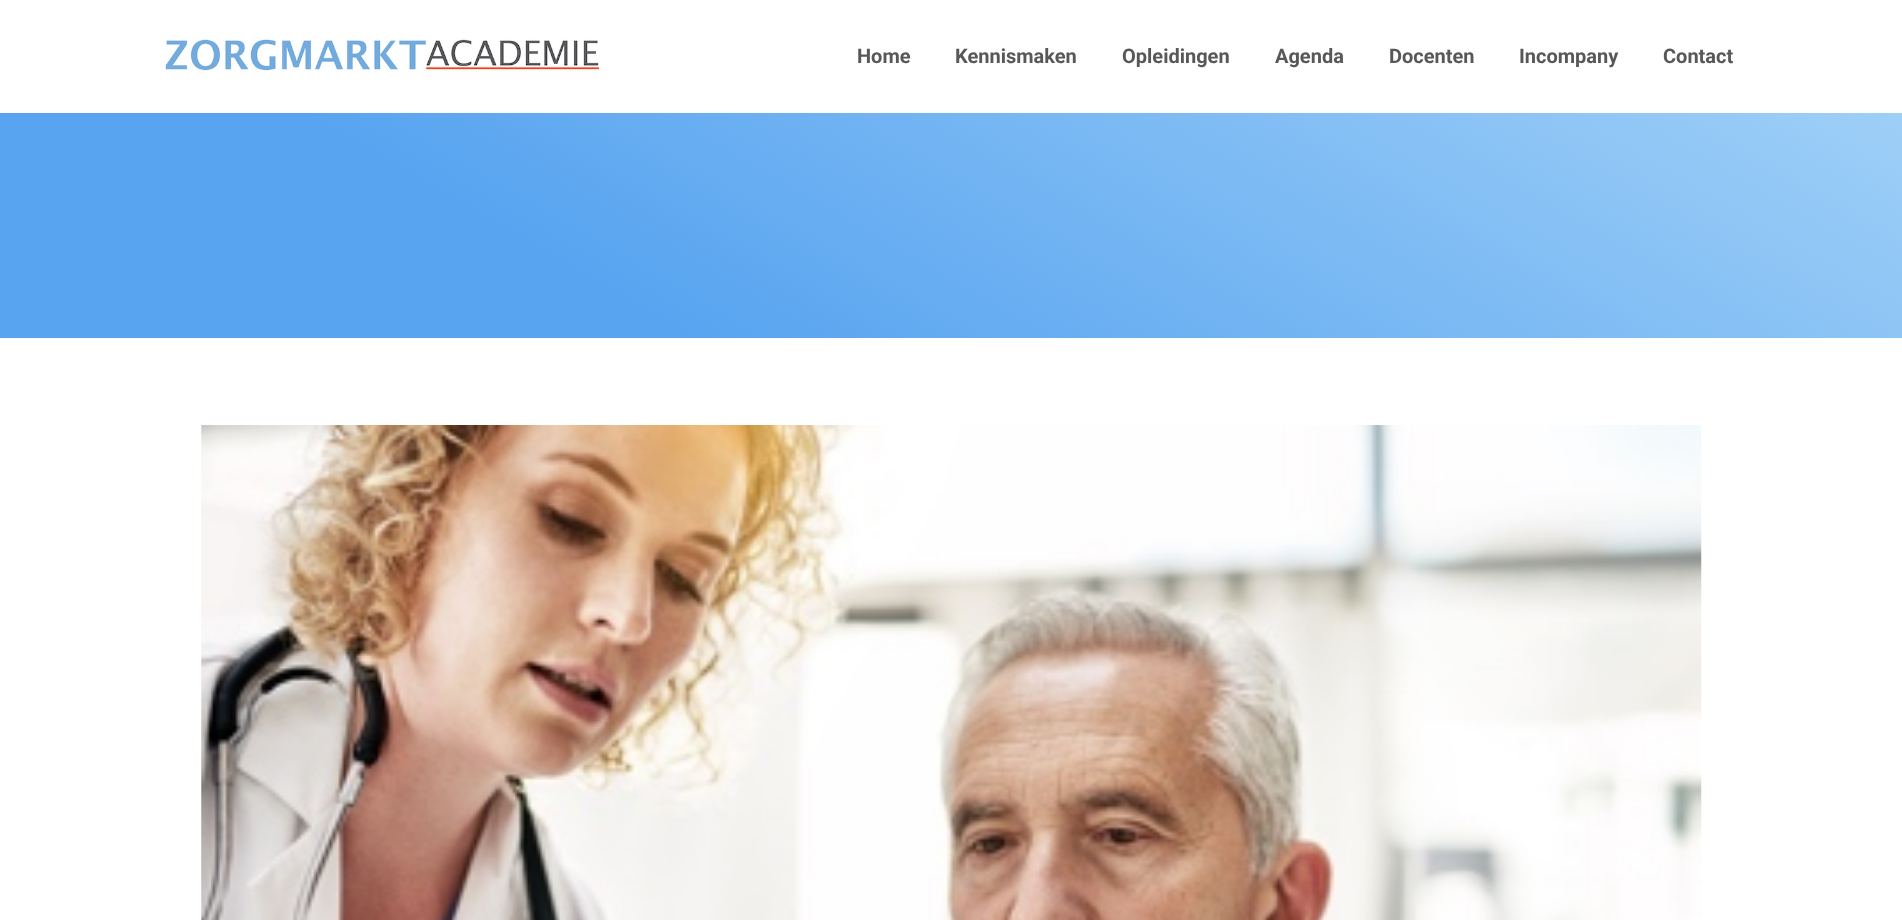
<svg xmlns="http://www.w3.org/2000/svg" xmlns:xlink="http://www.w3.org/1999/xlink" width="1902" height="920" viewBox="0 0 1902 920">
<style>
.cls-1{font:bold 20px Roboto;fill:#58585a}
</style>
<defs>
<linearGradient id="g1" gradientUnits="userSpaceOnUse" x1="665" y1="721" x2="1238" y2="-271"><stop offset="0.3" stop-color="#58a4f0"/><stop offset="1" stop-color="#9ecff7"/></linearGradient>
</defs>
<rect width="100%" height="100%" fill="#ffffff"/>
<image xlink:href="image0.png" x="165" y="38" width="435" height="33"/>
<rect fill="url(#g1)" x="0" y="113" width="1902" height="225"/>
<image xlink:href="image1.png" x="201" y="425" width="1501" height="495"/>
<text class="cls-1" x="857" y="63">Home</text>
<text class="cls-1" x="955" y="63">Kennismaken</text>
<text class="cls-1" x="1122" y="63">Opleidingen</text>
<text class="cls-1" x="1275" y="63">Agenda</text>
<text class="cls-1" x="1389" y="63">Docenten</text>
<text class="cls-1" x="1519" y="63">Incompany</text>
<text class="cls-1" x="1663" y="63">Contact</text>
</svg>
